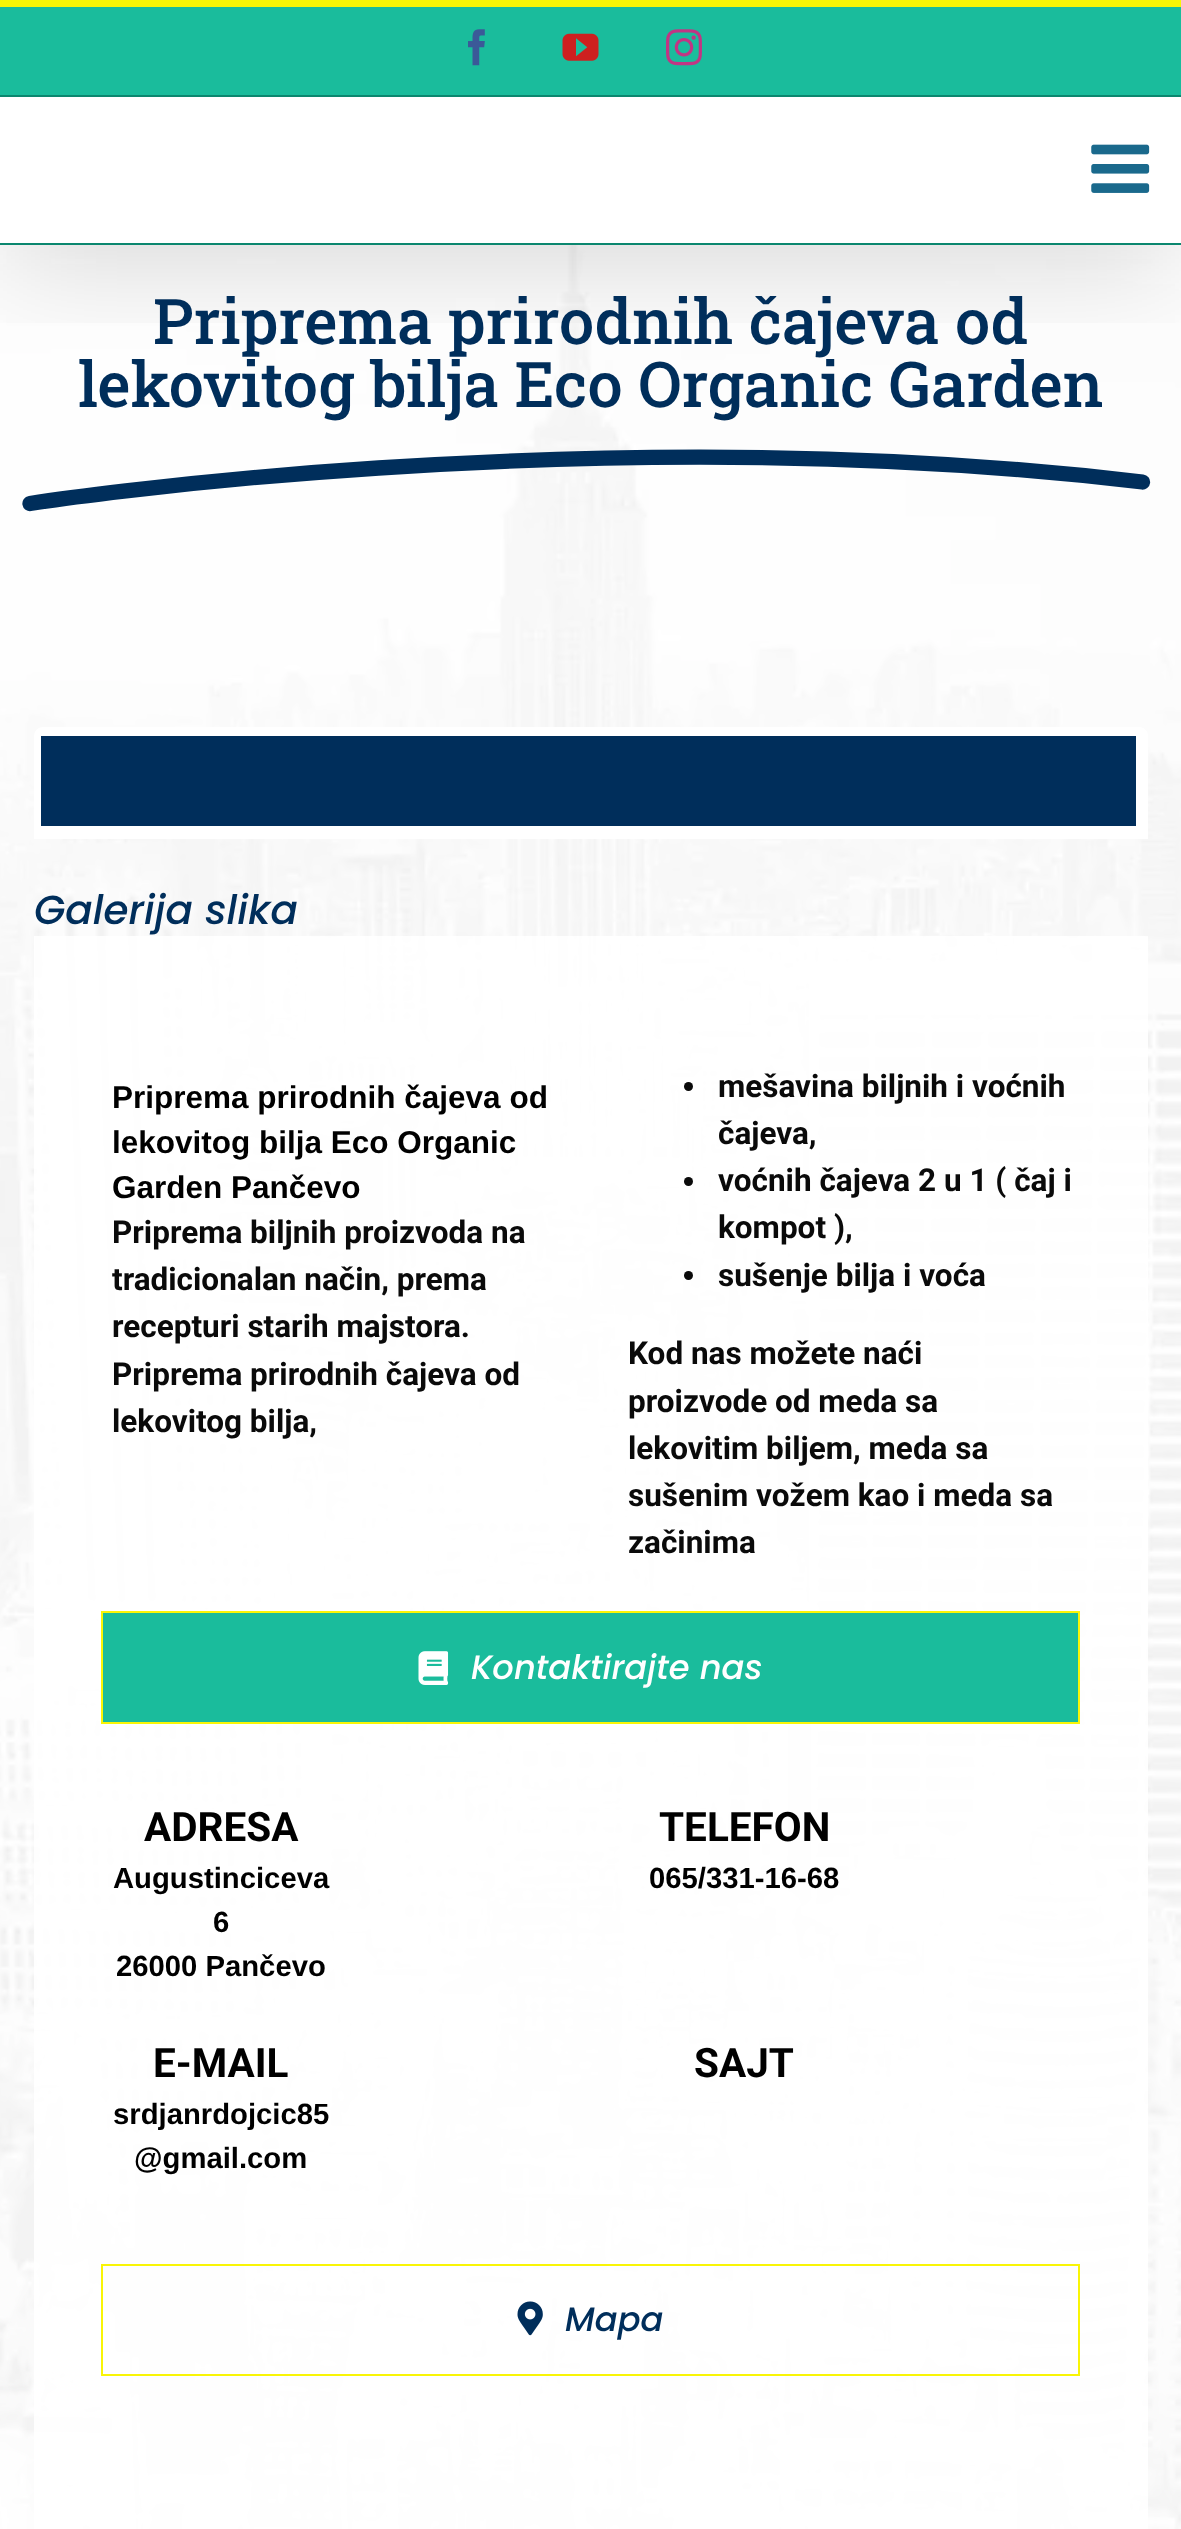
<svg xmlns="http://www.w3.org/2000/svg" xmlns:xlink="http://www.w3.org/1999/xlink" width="1181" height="2529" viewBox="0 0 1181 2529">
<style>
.cls-1{font:500 63px Roboto Slab;fill:#002e5b}
.cls-2{font:italic 500 40.5px Poppins;fill:#002e5b}
.cls-3{font:bold 31.5px Roboto;fill:#0a0a0a}
.cls-4{font:bold 31.5px Liberation Sans;fill:#000000}
.cls-5{font:italic 500 33.75px Poppins;fill:#ffffff}
.cls-6{font:bold 40.5px Roboto;fill:#000000}
.cls-7{font:bold 29.25px Liberation Sans;fill:#000000}
.cls-8{font:italic 500 33.75px Poppins;fill:#002e5b}
</style>
<defs>
<clipPath id="clip1"><rect x="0" y="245" width="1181" height="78"/></clipPath>
</defs>
<rect width="100%" height="100%" fill="#ffffff"/>
<image xlink:href="image4.png" x="0" y="245" width="1181" height="2284"/>
<g clip-path="url(#clip1)">
<rect fill="#000000" fill-opacity="0.14" filter="blur(56px)" x="5" y="27" width="1172" height="236"/>
</g>
<rect fill="#1abc9c" x="0" y="7" width="1181" height="88"/>
<rect fill="#f9f506" x="0" y="0" width="1181" height="7"/>
<rect fill="#0b876f" x="0" y="95" width="1181" height="2"/>
<image xlink:href="image0.png" x="468" y="29" width="17" height="37"/>
<image xlink:href="image1.png" x="562" y="33" width="37" height="28"/>
<image xlink:href="image2.png" x="666" y="29" width="36" height="37"/>
<rect fill="#0b876f" x="0" y="243" width="1181" height="2"/>
<image xlink:href="image3.png" x="1091" y="144" width="59" height="49"/>
<path fill="none" stroke="#002e5b" stroke-width="15.3" stroke-linecap="round" stroke-linejoin="round" d="M30 503.5C30 503.5 588.5 416 1142.5 482"/>
<path fill="#ffffff" d="M43 727H1139C1144 727 1148 731 1148 736V839H34V736C34 731 38 727 43 727Z"/>
<rect fill="#002e5b" x="41" y="736" width="1095" height="90"/>
<rect fill="#ffffff" fill-opacity="0.9" x="34" y="936" width="1114" height="1593"/>
<circle fill="#0a0a0a" cx="688.5" cy="1086.5" r="4.5"/>
<circle fill="#0a0a0a" cx="688.5" cy="1181.5" r="4.5"/>
<circle fill="#0a0a0a" cx="688.5" cy="1275.5" r="4.5"/>
<rect fill="#1abc9c" stroke="#f9f506" stroke-width="2" x="102" y="1612" width="977" height="111"/>
<image xlink:href="image5.png" x="418" y="1651" width="31" height="34"/>
<rect fill="none" stroke="#f9f506" stroke-width="2" x="102" y="2265" width="977" height="110"/>
<image xlink:href="image6.png" x="517" y="2301" width="26" height="35"/>
<text class="cls-1" x="153" y="344">Priprema prirodnih čajeva od</text>
<text class="cls-1" x="78" y="407">lekovitog bilja Eco Organic Garden</text>
<text class="cls-2" x="34" y="924">Galerija slika</text>
<text class="cls-3"><tspan x="718" y="1097">mešavina biljnih i voćnih</tspan><tspan x="718" y="1144">čajeva,</tspan><tspan x="718" y="1191">voćnih čajeva 2 u 1 ( čaj i</tspan><tspan x="718" y="1238">kompot ),</tspan><tspan x="718" y="1286">sušenje bilja i voća</tspan></text>
<text class="cls-3"><tspan x="112" y="1385">Priprema prirodnih čajeva od</tspan><tspan x="112" y="1432">lekovitog bilja,</tspan></text>
<text class="cls-3"><tspan x="628" y="1364">Kod nas možete naći</tspan><tspan x="628" y="1412">proizvode od meda sa</tspan><tspan x="628" y="1459">lekovitim biljem, meda sa</tspan><tspan x="628" y="1506">sušenim vožem kao i meda sa</tspan><tspan x="628" y="1553">začinima</tspan></text>
<text class="cls-4"><tspan x="112" y="1108">Priprema prirodnih čajeva od</tspan><tspan x="112" y="1153">lekovitog bilja Eco Organic</tspan><tspan x="112" y="1198">Garden Pančevo</tspan></text>
<text class="cls-3"><tspan x="112" y="1243">Priprema biljnih proizvoda na</tspan><tspan x="112" y="1290">tradicionalan način, prema</tspan><tspan x="112" y="1337">recepturi starih majstora.</tspan></text>
<text class="cls-5" x="471" y="1679">Kontaktirajte nas</text>
<text class="cls-6" x="144" y="1841">ADRESA</text>
<text class="cls-7" x="113" y="1888">Augustinciceva</text>
<text class="cls-7" x="213" y="1932">6</text>
<text class="cls-7" x="116" y="1976">26000 Pančevo</text>
<text class="cls-6" x="659" y="1841">TELEFON</text>
<text class="cls-7" x="649" y="1888">065/331-16-68</text>
<text class="cls-6" x="153" y="2077">E-MAIL</text>
<text class="cls-7" x="113" y="2124">srdjanrdojcic85</text>
<text class="cls-7" x="134" y="2168">@gmail.com</text>
<text class="cls-6" x="694" y="2077">SAJT</text>
<text class="cls-8" x="565" y="2331">Mapa</text>
</svg>
